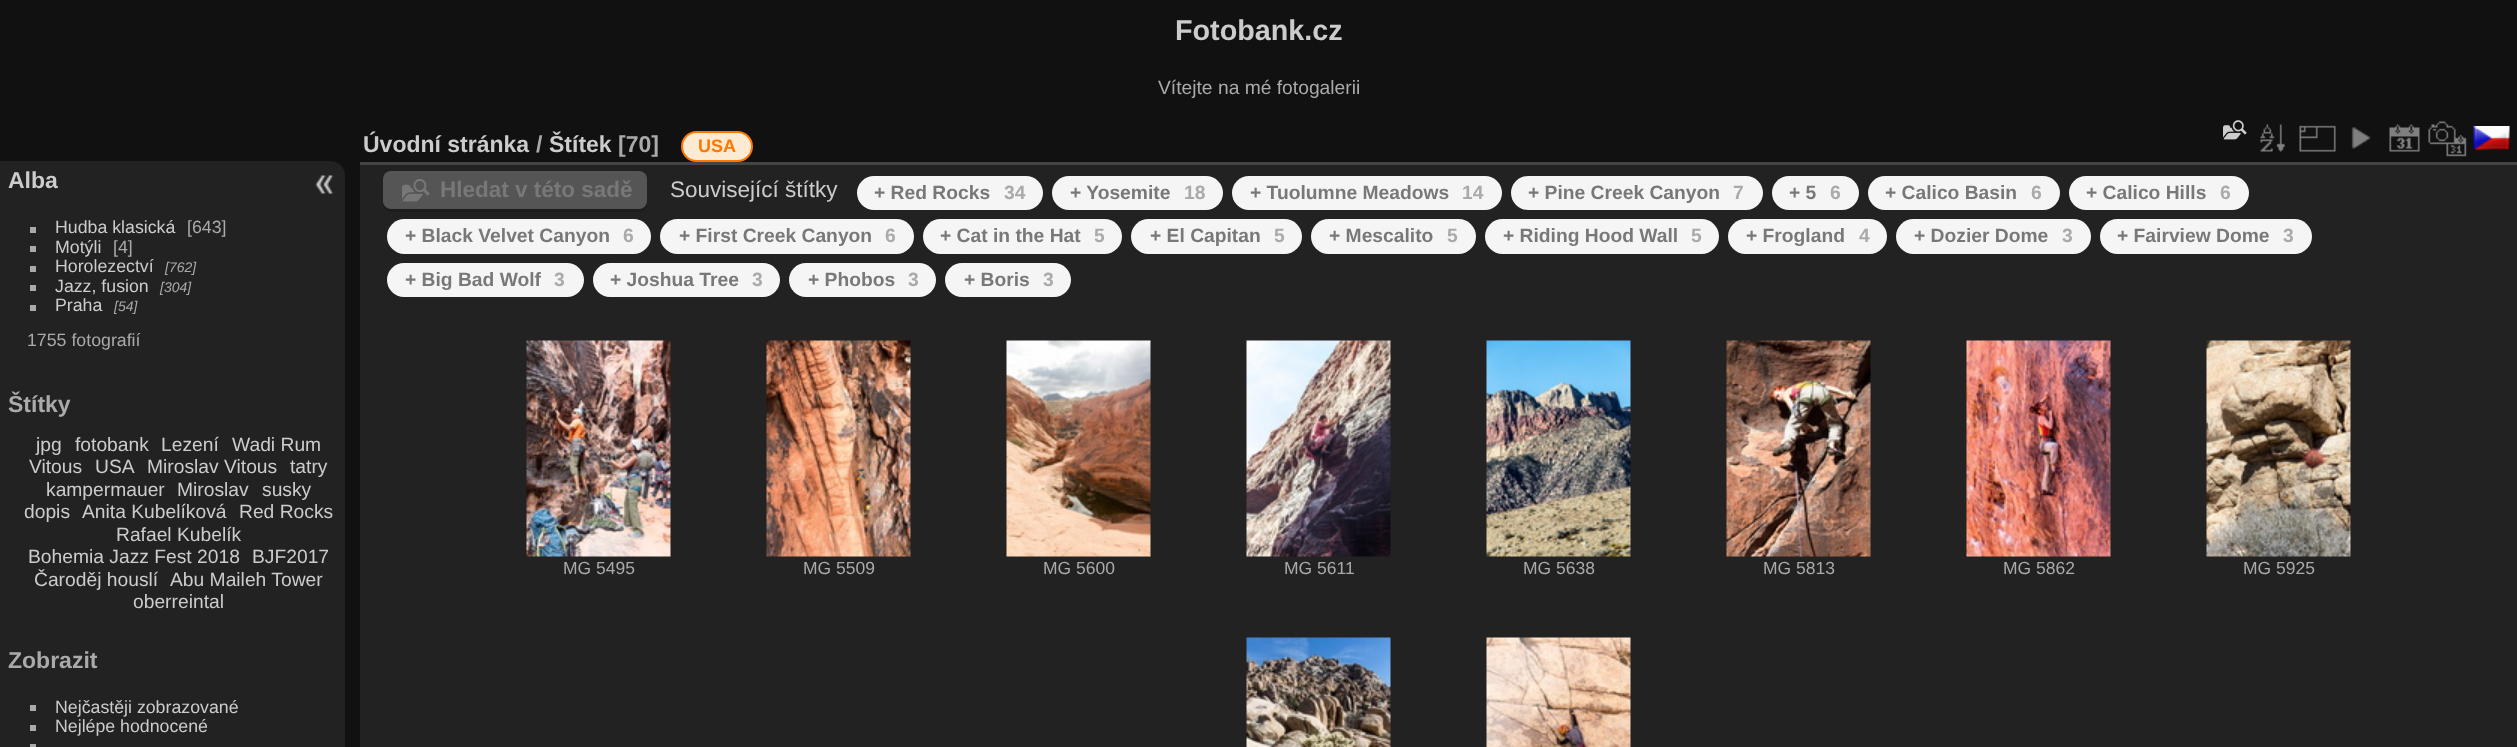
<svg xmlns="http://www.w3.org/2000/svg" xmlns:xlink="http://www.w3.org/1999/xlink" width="2517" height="747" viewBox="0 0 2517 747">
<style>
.cls-1{font:bold 28.75px Liberation Sans;fill:#cccccc}
.cls-2{font:19.25px Liberation Sans;fill:#aaaaaa}
.cls-3{font:bold 23px Liberation Sans;fill:#cccccc}
.cls-4{font:17.75px Liberation Sans;fill:#cccccc}
.cls-5{font:17.75px Liberation Sans;fill:#aaaaaa}
.cls-6{font:italic 14px Liberation Sans;fill:#aaaaaa}
.cls-7{font:bold 23px Liberation Sans;fill:#aaaaaa}
.cls-8{font:19.25px Liberation Sans;fill:#cccccc}
.cls-9{font:bold 18px Liberation Sans;fill:#ff7700}
.cls-10{font:bold 22.5px Liberation Sans;fill:#787878}
.cls-11{font:22.5px Liberation Sans;fill:#cccccc}
.cls-12{font:bold 19.25px Liberation Sans;fill:#787878}
.cls-13{font:bold 19.25px Liberation Sans;fill:#aaaaaa}
.cls-14{font:17.5px Liberation Sans;fill:#aaaaaa}
</style>
<rect width="100%" height="100%" fill="#111111"/>
<path fill="#222222" d="M0 161H330C338.5 161 345 167.5 345 176V747C345 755.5 338.5 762 330 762H0Z"/>
<rect fill="#aaaaaa" x="30" y="227" width="6" height="6"/>
<rect fill="#aaaaaa" x="30" y="246" width="6" height="6"/>
<rect fill="#aaaaaa" x="30" y="266" width="6" height="6"/>
<rect fill="#aaaaaa" x="30" y="285" width="6" height="6"/>
<rect fill="#aaaaaa" x="30" y="305" width="6" height="6"/>
<rect fill="#aaaaaa" x="30" y="705" width="6" height="6"/>
<rect fill="#aaaaaa" x="30" y="725" width="6" height="6"/>
<rect fill="#aaaaaa" x="30" y="744" width="6" height="3"/>
<rect fill="#222222" x="360" y="165" width="2157" height="582"/>
<rect fill="#444444" x="360" y="162" width="2157" height="3"/>
<rect fill="#fcead2" stroke="#ff7700" stroke-width="2" x="682" y="132" width="70" height="29" rx="14.5"/>
<image xlink:href="image0.png" x="2223" y="120" width="24" height="20"/>
<image xlink:href="image1.png" x="2260" y="124" width="25" height="28"/>
<image xlink:href="image2.png" x="2299" y="125" width="37" height="27"/>
<image xlink:href="image3.png" x="2351" y="127" width="20" height="22"/>
<image xlink:href="image4.png" x="2389" y="124" width="31" height="28"/>
<image xlink:href="image5.png" x="2428" y="121" width="39" height="36"/>
<image xlink:href="image6.png" x="2473" y="126" width="37" height="24"/>
<path fill="#1d1d1d" d="M383 204C383 208 387 212 391 212H639C643 212 647 208 647 204V182L646 179V201C646 205 643 208 639 208H390C387 208 384 207 383 204Z"/>
<rect fill="#555555" x="383" y="171" width="264" height="38" rx="8"/>
<image xlink:href="image7.png" x="402" y="179" width="28" height="23"/>
<rect fill="#f5f5f5" x="857" y="176" width="186" height="34" rx="17"/>
<rect fill="#f5f5f5" x="1052" y="176" width="171" height="34" rx="17"/>
<rect fill="#f5f5f5" x="1232" y="176" width="270" height="34" rx="17"/>
<rect fill="#f5f5f5" x="1511" y="176" width="252" height="34" rx="17"/>
<rect fill="#f5f5f5" x="1772" y="176" width="87" height="34" rx="17"/>
<rect fill="#f5f5f5" x="1868" y="176" width="192" height="34" rx="17"/>
<rect fill="#f5f5f5" x="2069" y="176" width="180" height="34" rx="17"/>
<rect fill="#f5f5f5" x="387" y="219" width="264" height="35" rx="17.5"/>
<rect fill="#f5f5f5" x="660" y="219" width="254" height="35" rx="17.5"/>
<rect fill="#f5f5f5" x="923" y="219" width="199" height="35" rx="17.5"/>
<rect fill="#f5f5f5" x="1131" y="219" width="171" height="35" rx="17.5"/>
<rect fill="#f5f5f5" x="1311" y="219" width="165" height="35" rx="17.5"/>
<rect fill="#f5f5f5" x="1485" y="219" width="234" height="35" rx="17.5"/>
<rect fill="#f5f5f5" x="1728" y="219" width="159" height="35" rx="17.5"/>
<rect fill="#f5f5f5" x="1896" y="219" width="195" height="35" rx="17.5"/>
<rect fill="#f5f5f5" x="2100" y="219" width="212" height="35" rx="17.5"/>
<rect fill="#f5f5f5" x="387" y="263" width="197" height="34" rx="17"/>
<rect fill="#f5f5f5" x="593" y="263" width="187" height="34" rx="17"/>
<rect fill="#f5f5f5" x="789" y="263" width="147" height="34" rx="17"/>
<rect fill="#f5f5f5" x="945" y="263" width="126" height="34" rx="17"/>
<image xlink:href="image8.png" x="526" y="340" width="145" height="217"/>
<image xlink:href="image9.png" x="766" y="340" width="145" height="217"/>
<image xlink:href="image10.png" x="1006" y="340" width="145" height="217"/>
<image xlink:href="image11.png" x="1246" y="340" width="145" height="217"/>
<image xlink:href="image12.png" x="1486" y="340" width="145" height="217"/>
<image xlink:href="image13.png" x="1726" y="340" width="145" height="217"/>
<image xlink:href="image14.png" x="1966" y="340" width="145" height="217"/>
<image xlink:href="image15.png" x="2206" y="340" width="145" height="217"/>
<image xlink:href="image16.png" x="1246" y="637" width="145" height="110"/>
<image xlink:href="image17.png" x="1486" y="637" width="145" height="110"/>
<image xlink:href="image18.png" x="315" y="175" width="19" height="19"/>
<text class="cls-1" x="1175" y="40">Fotobank.cz</text>
<text class="cls-2" x="1158" y="94">Vítejte na mé fotogalerii</text>
<text class="cls-3" x="8" y="188">Alba</text>
<text class="cls-4" x="55" y="233">Hudba klasická</text>
<text class="cls-5" x="187" y="233">[643]</text>
<text class="cls-4" x="55" y="253">Motýli</text>
<text class="cls-5" x="113" y="253">[4]</text>
<text class="cls-4" x="55" y="272">Horolezectví</text>
<text class="cls-6" x="165" y="272">[762]</text>
<text class="cls-4" x="55" y="292">Jazz, fusion</text>
<text class="cls-6" x="160" y="292">[304]</text>
<text class="cls-4" x="55" y="311">Praha</text>
<text class="cls-6" x="114" y="311">[54]</text>
<text class="cls-5" x="27" y="346">1755 fotografií</text>
<text class="cls-7" x="8" y="412">Štítky</text>
<text class="cls-8" x="36" y="451">jpg</text>
<text class="cls-8" x="75" y="451">fotobank</text>
<text class="cls-8" x="161" y="451">Lezení</text>
<text class="cls-8" x="232" y="451">Wadi Rum</text>
<text class="cls-8" x="29" y="473">Vitous</text>
<text class="cls-8" x="95" y="473">USA</text>
<text class="cls-8" x="147" y="473">Miroslav Vitous</text>
<text class="cls-8" x="290" y="473">tatry</text>
<text class="cls-8" x="46" y="496">kampermauer</text>
<text class="cls-8" x="177" y="496">Miroslav</text>
<text class="cls-8" x="262" y="496">susky</text>
<text class="cls-8" x="24" y="518">dopis</text>
<text class="cls-8" x="82" y="518">Anita Kubelíková</text>
<text class="cls-8" x="239" y="518">Red Rocks</text>
<text class="cls-8" x="116" y="541">Rafael Kubelík</text>
<text class="cls-8" x="28" y="563">Bohemia Jazz Fest 2018</text>
<text class="cls-8" x="252" y="563">BJF2017</text>
<text class="cls-8" x="34" y="586">Čaroděj houslí</text>
<text class="cls-8" x="170" y="586">Abu Maileh Tower</text>
<text class="cls-8" x="133" y="608">oberreintal</text>
<text class="cls-7" x="8" y="668">Zobrazit</text>
<text class="cls-4"><tspan x="55" y="713">Nejčastěji zobrazované</tspan><tspan x="55" y="732">Nejlépe hodnocené</tspan></text>
<text class="cls-3" x="363" y="152">Úvodní stránka</text>
<text class="cls-7" x="536" y="152">/</text>
<text class="cls-3" x="549" y="152">Štítek</text>
<text class="cls-7" x="618" y="152">[70]</text>
<text class="cls-9" x="698" y="152">USA</text>
<text class="cls-10" x="440" y="197">Hledat v této sadě</text>
<text class="cls-11" x="670" y="197">Související štítky</text>
<text class="cls-12" x="874" y="199">+ Red Rocks</text>
<text class="cls-13" x="1004" y="199">34</text>
<text class="cls-12" x="1070" y="199">+ Yosemite</text>
<text class="cls-13" x="1184" y="199">18</text>
<text class="cls-12" x="1250" y="199">+ Tuolumne Meadows</text>
<text class="cls-13" x="1462" y="199">14</text>
<text class="cls-12" x="1528" y="199">+ Pine Creek Canyon</text>
<text class="cls-13" x="1733" y="199">7</text>
<text class="cls-12" x="1789" y="199">+ 5</text>
<text class="cls-13" x="1830" y="199">6</text>
<text class="cls-12" x="1885" y="199">+ Calico Basin</text>
<text class="cls-13" x="2031" y="199">6</text>
<text class="cls-12" x="2086" y="199">+ Calico Hills</text>
<text class="cls-13" x="2220" y="199">6</text>
<text class="cls-12" x="405" y="242">+ Black Velvet Canyon</text>
<text class="cls-13" x="623" y="242">6</text>
<text class="cls-12" x="679" y="242">+ First Creek Canyon</text>
<text class="cls-13" x="885" y="242">6</text>
<text class="cls-12" x="940" y="242">+ Cat in the Hat</text>
<text class="cls-13" x="1094" y="242">5</text>
<text class="cls-12" x="1150" y="242">+ El Capitan</text>
<text class="cls-13" x="1274" y="242">5</text>
<text class="cls-12" x="1329" y="242">+ Mescalito</text>
<text class="cls-13" x="1447" y="242">5</text>
<text class="cls-12" x="1503" y="242">+ Riding Hood Wall</text>
<text class="cls-13" x="1691" y="242">5</text>
<text class="cls-12" x="1746" y="242">+ Frogland</text>
<text class="cls-13" x="1859" y="242">4</text>
<text class="cls-12" x="1914" y="242">+ Dozier Dome</text>
<text class="cls-13" x="2062" y="242">3</text>
<text class="cls-12" x="2117" y="242">+ Fairview Dome</text>
<text class="cls-13" x="2283" y="242">3</text>
<text class="cls-12" x="405" y="286">+ Big Bad Wolf</text>
<text class="cls-13" x="554" y="286">3</text>
<text class="cls-12" x="610" y="286">+ Joshua Tree</text>
<text class="cls-13" x="752" y="286">3</text>
<text class="cls-12" x="808" y="286">+ Phobos</text>
<text class="cls-13" x="908" y="286">3</text>
<text class="cls-12" x="964" y="286">+ Boris</text>
<text class="cls-13" x="1043" y="286">3</text>
<text class="cls-14" x="563" y="574">MG 5495</text>
<text class="cls-14" x="803" y="574">MG 5509</text>
<text class="cls-14" x="1043" y="574">MG 5600</text>
<text class="cls-14" x="1284" y="574">MG 5611</text>
<text class="cls-14" x="1523" y="574">MG 5638</text>
<text class="cls-14" x="1763" y="574">MG 5813</text>
<text class="cls-14" x="2003" y="574">MG 5862</text>
<text class="cls-14" x="2243" y="574">MG 5925</text>
</svg>
